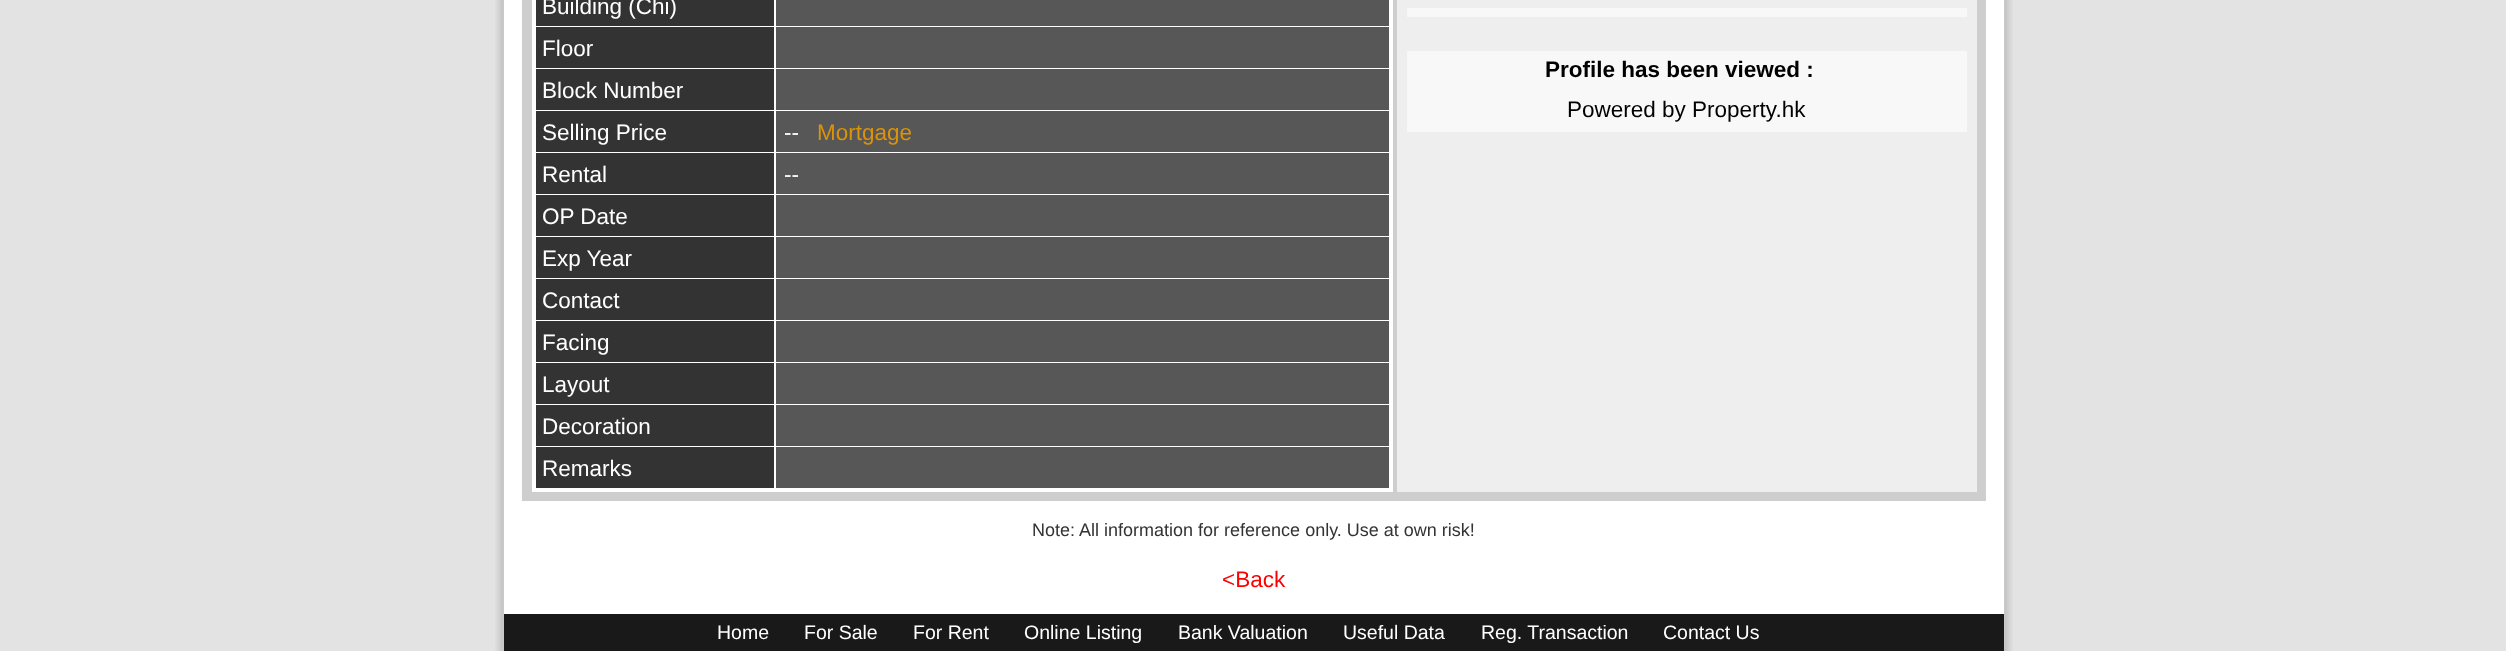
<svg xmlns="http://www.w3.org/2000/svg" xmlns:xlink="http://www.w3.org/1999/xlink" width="2506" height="651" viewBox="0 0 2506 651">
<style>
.cls-1{font:22.5px Liberation Sans;fill:#ffffff}
.cls-2{font:22.5px Liberation Sans;fill:#da930a}
.cls-3{font:bold 22.5px Liberation Sans;fill:#000000}
.cls-4{font:22.5px Liberation Sans;fill:#000000}
.cls-5{font:18px Liberation Sans;fill:#333333}
.cls-6{font:22.5px Liberation Sans;fill:#ff0000}
.cls-7{font:19.5px Liberation Sans;fill:#ffffff}
</style>
<rect width="100%" height="100%" fill="#e3e3e3"/>
<image xlink:href="image0.png" x="495" y="0" width="1518" height="651"/>
<rect fill="#ffffff" x="504" y="0" width="1500" height="614"/>
<rect fill="none" stroke="#cecece" stroke-width="8" x="526" y="-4" width="1456" height="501"/>
<rect fill="none" stroke="#cecece" stroke-width="2" x="531" y="-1" width="863" height="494"/>
<rect fill="#333333" x="536" y="0" width="238" height="26"/>
<rect fill="#575757" x="776" y="0" width="613" height="26"/>
<rect fill="#333333" x="536" y="27" width="238" height="41"/>
<rect fill="#575757" x="776" y="27" width="613" height="41"/>
<rect fill="#333333" x="536" y="69" width="238" height="41"/>
<rect fill="#575757" x="776" y="69" width="613" height="41"/>
<rect fill="#333333" x="536" y="111" width="238" height="41"/>
<rect fill="#575757" x="776" y="111" width="613" height="41"/>
<rect fill="#333333" x="536" y="153" width="238" height="41"/>
<rect fill="#575757" x="776" y="153" width="613" height="41"/>
<rect fill="#333333" x="536" y="195" width="238" height="41"/>
<rect fill="#575757" x="776" y="195" width="613" height="41"/>
<rect fill="#333333" x="536" y="237" width="238" height="41"/>
<rect fill="#575757" x="776" y="237" width="613" height="41"/>
<rect fill="#333333" x="536" y="279" width="238" height="41"/>
<rect fill="#575757" x="776" y="279" width="613" height="41"/>
<rect fill="#333333" x="536" y="321" width="238" height="41"/>
<rect fill="#575757" x="776" y="321" width="613" height="41"/>
<rect fill="#333333" x="536" y="363" width="238" height="41"/>
<rect fill="#575757" x="776" y="363" width="613" height="41"/>
<rect fill="#333333" x="536" y="405" width="238" height="41"/>
<rect fill="#575757" x="776" y="405" width="613" height="41"/>
<rect fill="#333333" x="536" y="447" width="238" height="41"/>
<rect fill="#575757" x="776" y="447" width="613" height="41"/>
<rect fill="#eeeeee" stroke="#cecece" stroke-width="2" x="1396" y="-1" width="582" height="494"/>
<rect fill="#f8f8f8" x="1407" y="8" width="560" height="9"/>
<rect fill="#f8f8f8" x="1407" y="51" width="560" height="81"/>
<rect fill="#191919" x="504" y="614" width="1500" height="37"/>
<text class="cls-1"><tspan x="542" y="14">Building (Chi)</tspan><tspan x="542" y="56">Floor</tspan><tspan x="542" y="98">Block Number</tspan><tspan x="542" y="140">Selling Price</tspan></text>
<text class="cls-1" x="784" y="140">--</text>
<text class="cls-2" x="817" y="140">Mortgage</text>
<text class="cls-1" x="542" y="182">Rental</text>
<text class="cls-1" x="784" y="182">--</text>
<text class="cls-1"><tspan x="542" y="224">OP Date</tspan><tspan x="542" y="266">Exp Year</tspan><tspan x="542" y="308">Contact</tspan><tspan x="542" y="350">Facing</tspan><tspan x="542" y="392">Layout</tspan><tspan x="542" y="434">Decoration</tspan><tspan x="542" y="476">Remarks</tspan></text>
<text class="cls-3" x="1545" y="77">Profile has been viewed :</text>
<text class="cls-4" x="1567" y="117">Powered by Property.hk</text>
<text class="cls-5" x="1032" y="536">Note: All information for reference only. Use at own risk!</text>
<text class="cls-6" x="1222" y="587">&lt;Back</text>
<text class="cls-7" x="717" y="639">Home</text>
<text class="cls-7" x="804" y="639">For Sale</text>
<text class="cls-7" x="913" y="639">For Rent</text>
<text class="cls-7" x="1024" y="639">Online Listing</text>
<text class="cls-7" x="1178" y="639">Bank Valuation</text>
<text class="cls-7" x="1343" y="639">Useful Data</text>
<text class="cls-7" x="1481" y="639">Reg. Transaction</text>
<text class="cls-7" x="1663" y="639">Contact Us</text>
</svg>
